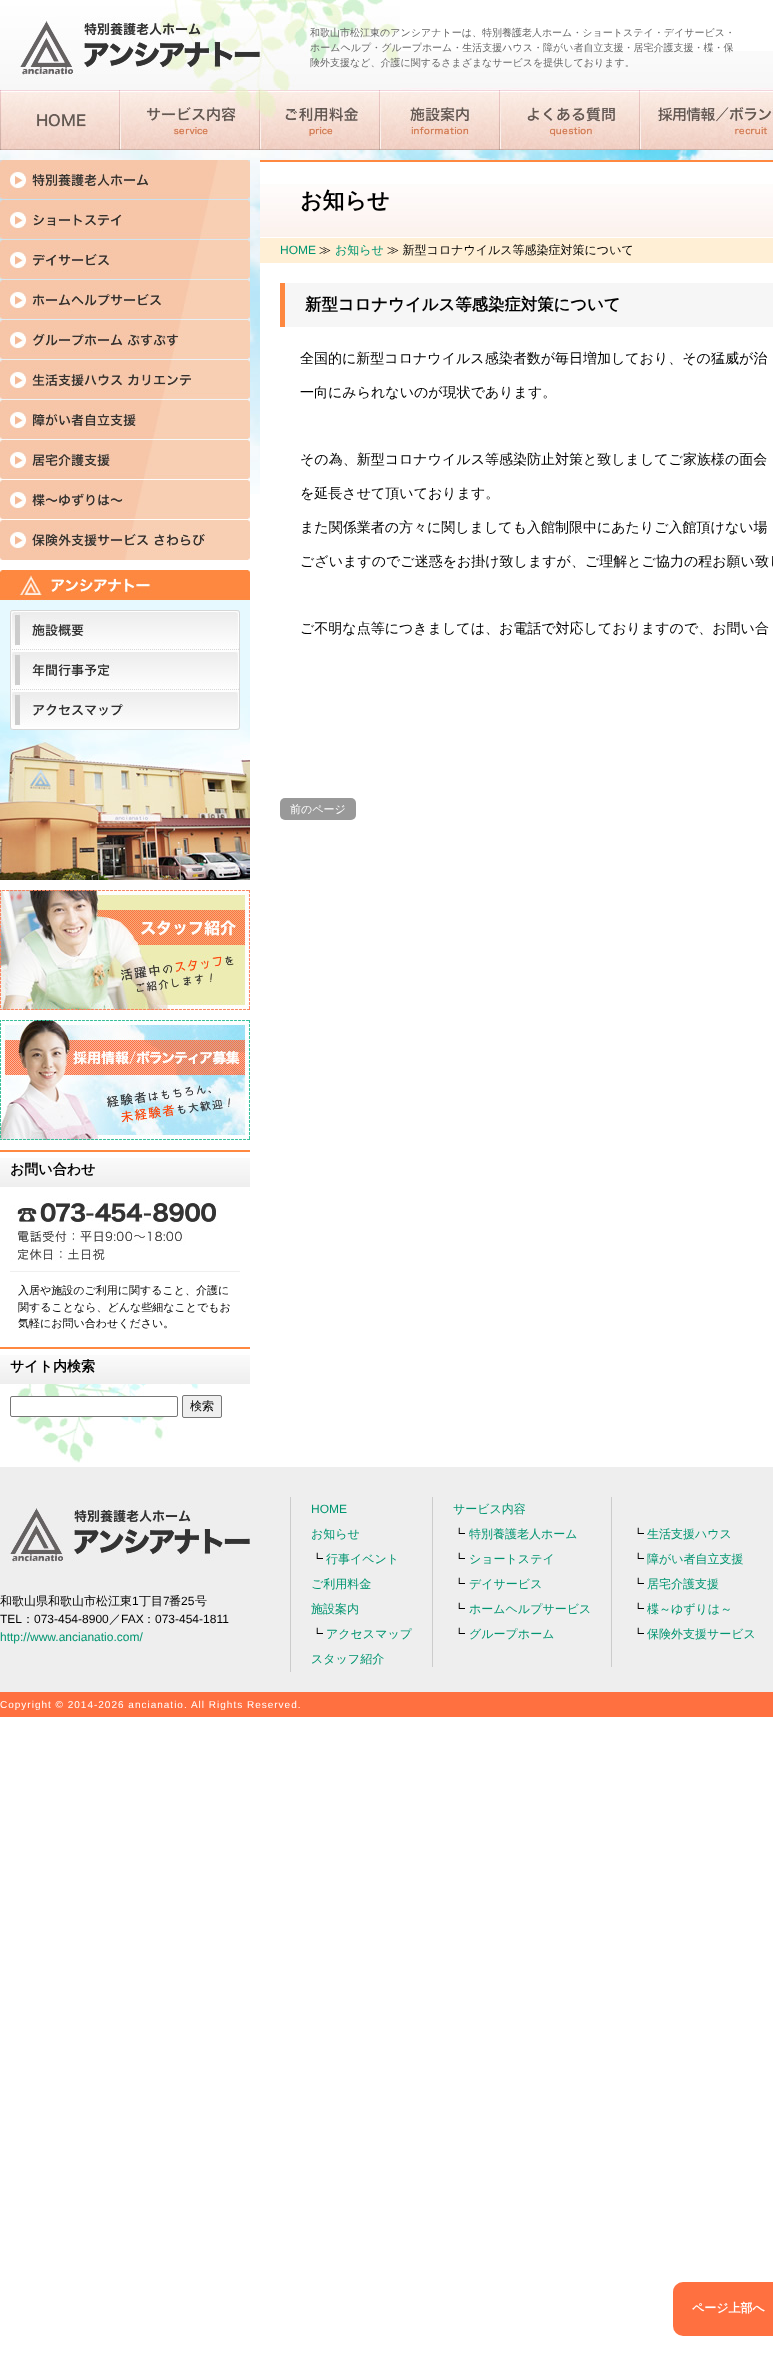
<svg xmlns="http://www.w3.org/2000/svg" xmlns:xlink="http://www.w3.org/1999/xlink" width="773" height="2366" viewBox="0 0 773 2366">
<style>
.cls-1{font:500 10px WenQuanYi Zen Hei;fill:#666666}
.cls-2{font:bold 22px WenQuanYi Zen Hei;fill:#000000}
.cls-3{font:12px Liberation Sans;fill:#009570}
.cls-4{font:500 12px WenQuanYi Zen Hei;fill:#000000}
.cls-5{font:500 12px WenQuanYi Zen Hei;fill:#009570}
.cls-6{font:bold 16.4px WenQuanYi Zen Hei;fill:#000000}
.cls-7{font:500 14px WenQuanYi Zen Hei;fill:#000000}
.cls-8{font:500 11px WenQuanYi Zen Hei;fill:#ffffff}
.cls-9{font:bold 14px WenQuanYi Zen Hei;fill:#000000}
.cls-10{font:500 11px WenQuanYi Zen Hei;fill:#000000}
.cls-11{font:12px Liberation Sans;fill:#000000}
.cls-12{font:10px Liberation Sans;letter-spacing:1px;fill:#ffffff}
.cls-13{font:bold 12px WenQuanYi Zen Hei;fill:#ffffff}
</style>
<rect width="100%" height="100%" fill="#ffffff"/>
<image xlink:href="image0.png" x="400" y="51" width="373" height="39"/>
<image xlink:href="image1.png" x="0" y="0" width="400" height="90"/>
<image xlink:href="image2.png" x="0" y="90" width="120" height="60"/>
<image xlink:href="image3.png" x="120" y="90" width="140" height="60"/>
<image xlink:href="image4.png" x="260" y="90" width="120" height="60"/>
<image xlink:href="image5.png" x="380" y="90" width="120" height="60"/>
<image xlink:href="image6.png" x="500" y="90" width="140" height="60"/>
<image xlink:href="image7.png" x="640" y="90" width="133" height="60"/>
<image xlink:href="image8.png" x="0" y="150" width="773" height="344"/>
<rect fill="#ffffff" x="260" y="162" width="513" height="332"/>
<image xlink:href="image9.png" x="260" y="184" width="513" height="53"/>
<rect fill="#ff8840" x="260" y="160" width="513" height="2"/>
<rect fill="#ffefd5" x="260" y="238" width="513" height="25"/>
<rect fill="#f6f6f6" x="285" y="283" width="488" height="44"/>
<rect fill="#fe8840" x="280" y="283" width="5" height="44"/>
<rect fill="#999999" x="280" y="798" width="76" height="22" rx="5"/>
<image xlink:href="image10.png" x="0" y="160" width="250" height="40"/>
<image xlink:href="image11.png" x="0" y="200" width="250" height="40"/>
<image xlink:href="image12.png" x="0" y="240" width="250" height="40"/>
<image xlink:href="image13.png" x="0" y="280" width="250" height="40"/>
<image xlink:href="image14.png" x="0" y="320" width="250" height="40"/>
<image xlink:href="image15.png" x="0" y="360" width="250" height="40"/>
<image xlink:href="image16.png" x="0" y="400" width="250" height="40"/>
<image xlink:href="image17.png" x="0" y="440" width="250" height="40"/>
<image xlink:href="image18.png" x="0" y="480" width="250" height="40"/>
<image xlink:href="image19.png" x="0" y="520" width="250" height="40"/>
<image xlink:href="image20.png" x="0" y="570" width="250" height="310"/>
<image xlink:href="image21.png" x="10" y="610" width="230" height="40"/>
<image xlink:href="image22.png" x="10" y="650" width="230" height="40"/>
<image xlink:href="image23.png" x="10" y="690" width="230" height="40"/>
<image xlink:href="image24.png" x="0" y="890" width="250" height="120"/>
<image xlink:href="image25.png" x="0" y="1020" width="250" height="120"/>
<image xlink:href="image26.png" x="0" y="1158" width="250" height="29"/>
<rect fill="#ff8840" x="0" y="1150" width="250" height="2"/>
<image xlink:href="image27.png" x="10" y="1198" width="230" height="74"/>
<image xlink:href="image28.png" x="16" y="1384" width="183" height="79"/>
<image xlink:href="image26.png" x="0" y="1355" width="250" height="29"/>
<rect fill="#ff8840" x="0" y="1347" width="250" height="2"/>
<rect fill="#ffffff" stroke="#767676" x="10.5" y="1396.5" width="167" height="20" rx="1.5"/>
<rect fill="#efefef" stroke="#767676" x="182.5" y="1395.5" width="39" height="22" rx="1.5"/>
<rect fill="#eeeeee" x="0" y="1467" width="773" height="225"/>
<image xlink:href="image29.png" x="8" y="1505" width="242" height="58"/>
<rect fill="#cccccc" x="290" y="1497" width="1" height="175"/>
<rect fill="#cccccc" x="432" y="1497" width="1" height="170"/>
<rect fill="#cccccc" x="611" y="1497" width="1" height="170"/>
<rect fill="#ff7040" x="0" y="1692" width="773" height="25"/>
<rect fill="#ff7040" x="673" y="2282" width="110" height="54" rx="10"/>
<text class="cls-1"><tspan x="310" y="36">和歌山市松江東のアンシアナトーは、特別養護老人ホーム・ショートステイ・デイサービス・</tspan><tspan x="310" y="51">ホームヘルプ・グループホーム・生活支援ハウス・障がい者自立支援・居宅介護支援・楪・保</tspan><tspan x="310" y="66">険外支援など、介護に関するさまざまなサービスを提供しております。</tspan></text>
<text class="cls-2" x="300" y="208">お知らせ</text>
<text class="cls-3" x="280" y="254">HOME</text>
<text class="cls-4" x="319" y="254">≫</text>
<text class="cls-5" x="335" y="254">お知らせ</text>
<text class="cls-4" x="387" y="254">≫ 新型コロナウイルス等感染症対策について</text>
<text class="cls-6" x="305" y="310">新型コロナウイルス等感染症対策について</text>
<text class="cls-7" x="300" y="363">全国的に新型コロナウイルス感染者数が毎日増加しており、その猛威が治</text>
<text class="cls-7" x="300" y="397">一向にみられないのが現状であります。</text>
<text class="cls-7" x="300" y="464">その為、新型コロナウイルス等感染防止対策と致しましてご家族様の面会</text>
<text class="cls-7" x="300" y="498">を延長させて頂いております。</text>
<text class="cls-7" x="300" y="532">また関係業者の方々に関しましても入館制限中にあたりご入館頂けない場</text>
<text class="cls-7" x="300" y="566">ございますのでご迷惑をお掛け致しますが、ご理解とご協力の程お願い致し</text>
<text class="cls-7" x="300" y="633">ご不明な点等につきましては、お電話で対応しておりますので、お問い合</text>
<text class="cls-8" x="290" y="813">前のページ</text>
<text class="cls-9" x="10" y="1174">お問い合わせ</text>
<text class="cls-10"><tspan x="18" y="1294">入居や施設のご利用に関すること、介護に</tspan><tspan x="18" y="1311">関することなら、どんな些細なことでもお</tspan><tspan x="18" y="1327">気軽にお問い合わせください。</tspan></text>
<text class="cls-9" x="10" y="1371">サイト内検索</text>
<text class="cls-4" x="190" y="1410">検索</text>
<text class="cls-4" x="0" y="1605">和歌山県和歌山市松江東</text>
<text class="cls-11" x="132" y="1605">1</text>
<text class="cls-4" x="139" y="1605">丁目</text>
<text class="cls-11" x="163" y="1605">7</text>
<text class="cls-4" x="169" y="1605">番</text>
<text class="cls-11" x="181" y="1605">25</text>
<text class="cls-4" x="195" y="1605">号</text>
<text class="cls-11" x="0" y="1623">TEL</text>
<text class="cls-4" x="22" y="1623">：</text>
<text class="cls-11" x="34" y="1623">073-454-8900</text>
<text class="cls-4" x="109" y="1623">／</text>
<text class="cls-11" x="121" y="1623">FAX</text>
<text class="cls-4" x="143" y="1623">：</text>
<text class="cls-11" x="155" y="1623">073-454-1811</text>
<text class="cls-3" x="0" y="1641">http://www.ancianatio.com/</text>
<text class="cls-3" x="311" y="1513">HOME</text>
<text class="cls-5" x="311" y="1538">お知らせ</text>
<text class="cls-4" x="311" y="1563">┗</text>
<text class="cls-5" x="326" y="1563">行事イベント</text>
<text class="cls-5" x="311" y="1588">ご利用料金</text>
<text class="cls-5" x="311" y="1613">施設案内</text>
<text class="cls-4" x="311" y="1638">┗</text>
<text class="cls-5" x="326" y="1638">アクセスマップ</text>
<text class="cls-5" x="311" y="1663">スタッフ紹介</text>
<text class="cls-5" x="453" y="1513">サービス内容</text>
<text class="cls-4" x="453" y="1538">┗</text>
<text class="cls-5" x="469" y="1538">特別養護老人ホーム</text>
<text class="cls-4" x="453" y="1563">┗</text>
<text class="cls-5" x="469" y="1563">ショートステイ</text>
<text class="cls-4" x="453" y="1588">┗</text>
<text class="cls-5" x="469" y="1588">デイサービス</text>
<text class="cls-4" x="453" y="1613">┗</text>
<text class="cls-5" x="469" y="1613">ホームヘルプサービス</text>
<text class="cls-4" x="453" y="1638">┗</text>
<text class="cls-5" x="469" y="1638">グループホーム</text>
<text class="cls-4" x="632" y="1538">┗</text>
<text class="cls-5" x="647" y="1538">生活支援ハウス</text>
<text class="cls-4" x="632" y="1563">┗</text>
<text class="cls-5" x="647" y="1563">障がい者自立支援</text>
<text class="cls-4" x="632" y="1588">┗</text>
<text class="cls-5" x="647" y="1588">居宅介護支援</text>
<text class="cls-4" x="632" y="1613">┗</text>
<text class="cls-5" x="647" y="1613">楪～ゆずりは～</text>
<text class="cls-4" x="632" y="1638">┗</text>
<text class="cls-5" x="647" y="1638">保険外支援サービス</text>
<text class="cls-12" x="0" y="1708">Copyright © 2014-2026 ancianatio. All Rights Reserved.</text>
<text class="cls-13" x="692" y="2312">ページ上部へ</text>
</svg>
